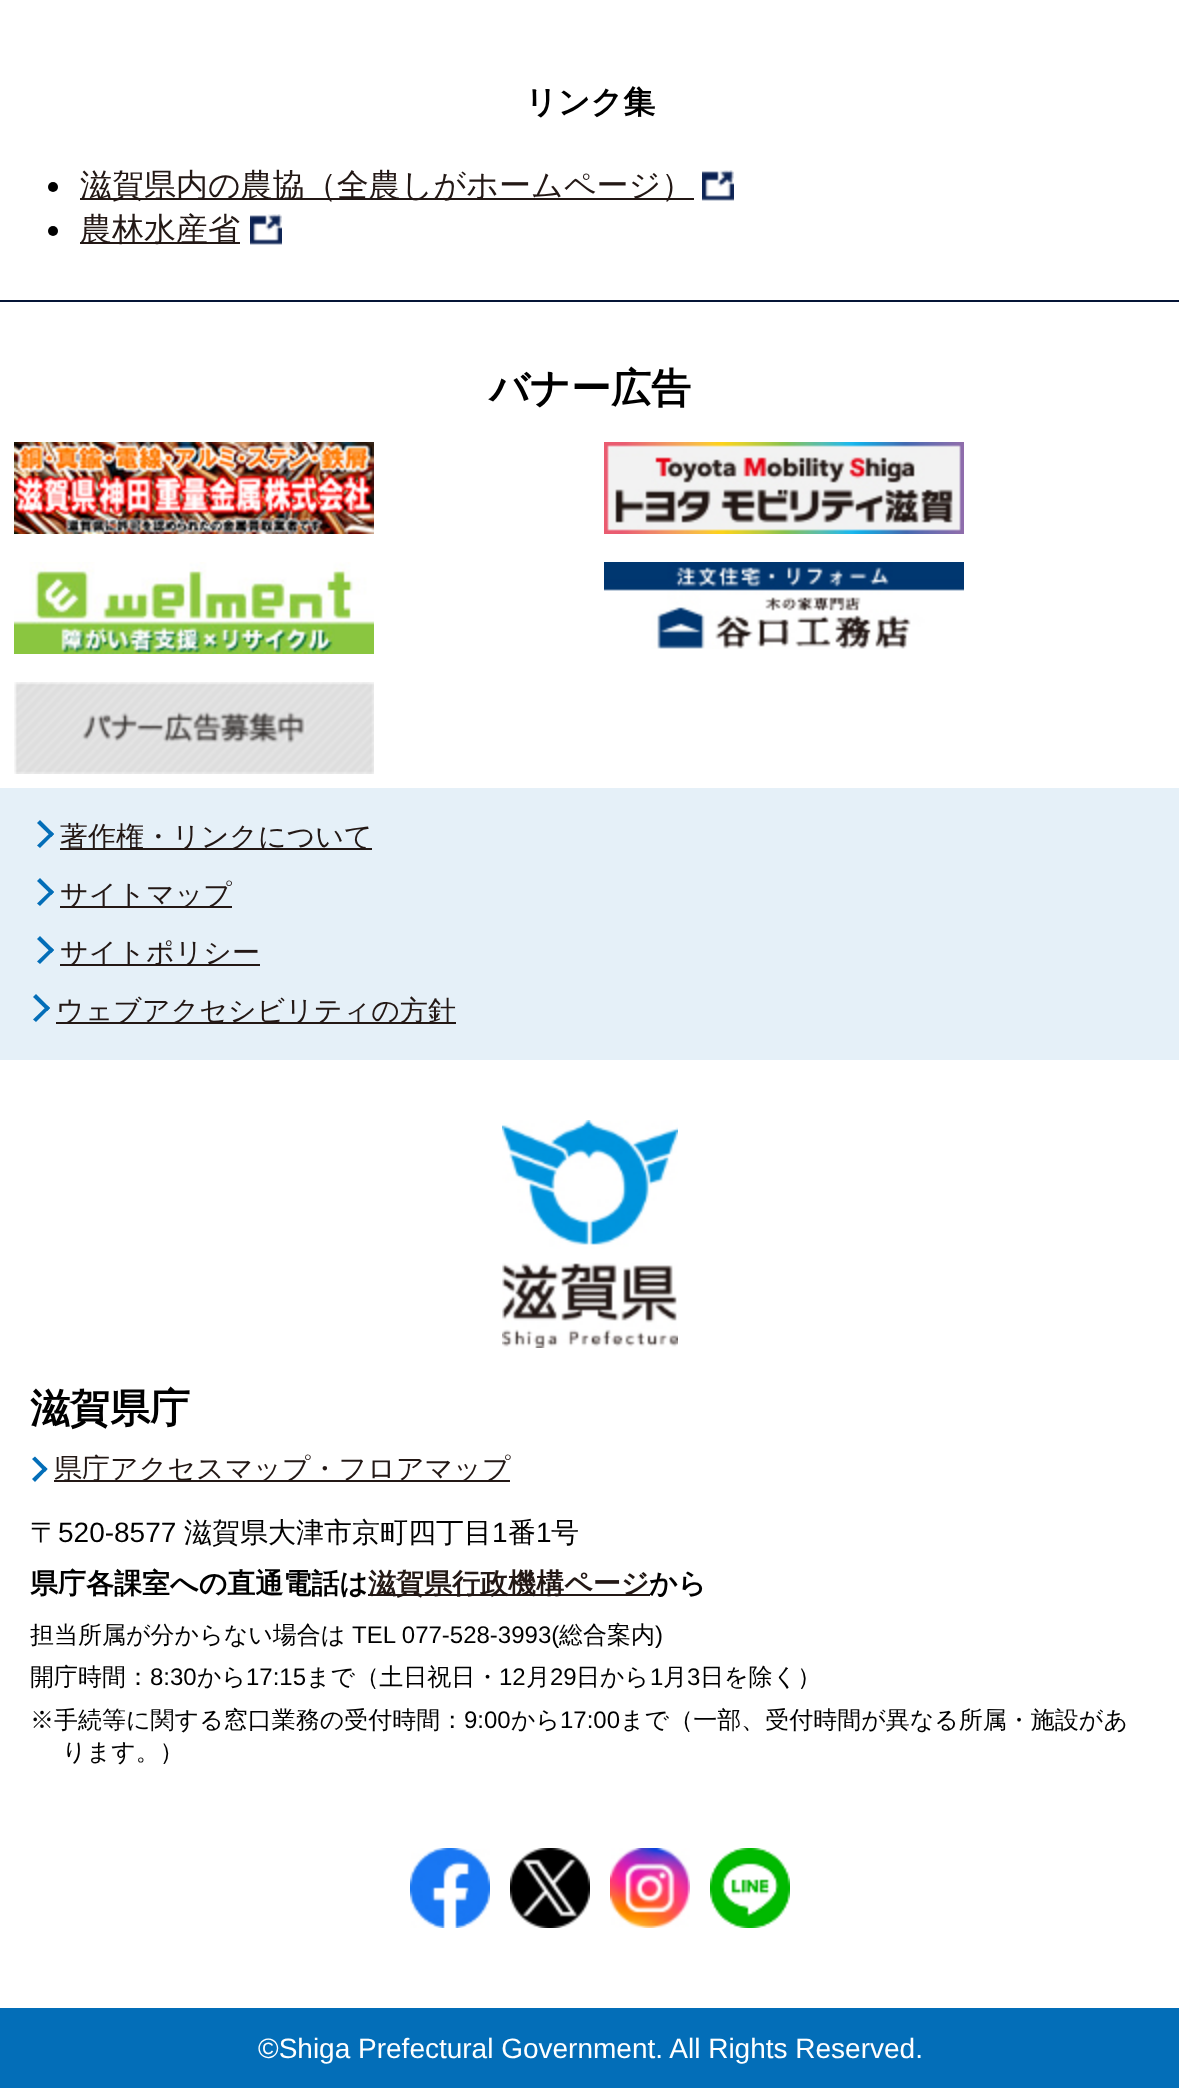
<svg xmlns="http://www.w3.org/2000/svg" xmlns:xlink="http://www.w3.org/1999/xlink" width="1179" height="2088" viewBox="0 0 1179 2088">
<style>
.cls-1{font:bold 32px WenQuanYi Zen Hei;fill:#000000}
.cls-2{font:500 32px WenQuanYi Zen Hei;fill:#231815}
.cls-3{font:bold 40px WenQuanYi Zen Hei;fill:#000000}
.cls-4{font:500 28px WenQuanYi Zen Hei;fill:#231815}
.cls-5{font:500 28px WenQuanYi Zen Hei;fill:#000000}
.cls-6{font:28px Liberation Sans;fill:#000000}
.cls-7{font:bold 28px WenQuanYi Zen Hei;fill:#000000}
.cls-8{font:bold 28px WenQuanYi Zen Hei;fill:#231815}
.cls-9{font:500 24px WenQuanYi Zen Hei;fill:#000000}
.cls-10{font:24px Liberation Sans;fill:#000000}
.cls-11{font:28px Liberation Sans;fill:#ffffff}
</style>
<rect width="100%" height="100%" fill="#ffffff"/>
<circle fill="#000000" cx="53" cy="187" r="5"/>
<rect fill="#231815" x="80" y="198" width="614" height="2"/>
<image xlink:href="image0.png" x="702" y="170" width="32" height="31"/>
<circle fill="#000000" cx="53" cy="231" r="5"/>
<rect fill="#231815" x="80" y="242" width="160" height="2"/>
<image xlink:href="image0.png" x="250" y="214" width="32" height="31"/>
<rect fill="#051536" x="0" y="300" width="1179" height="2"/>
<image xlink:href="image1.png" x="14" y="442" width="360" height="92"/>
<image xlink:href="image2.png" x="604" y="442" width="360" height="92"/>
<image xlink:href="image3.png" x="14" y="562" width="360" height="92"/>
<image xlink:href="image4.png" x="604" y="562" width="360" height="87"/>
<image xlink:href="image5.png" x="14" y="682" width="360" height="92"/>
<rect fill="#e5f0f8" x="0" y="788" width="1179" height="272"/>
<path fill="#036eb8" d="M40 820L54 834L51.5 837L37 823Z"/>
<path fill="#036eb8" d="M51.5 831.5L54 834L40 848L37 845.5Z"/>
<rect fill="#231815" x="60" y="848" width="312" height="2"/>
<path fill="#036eb8" d="M40 878L54 892L51.5 895L37 881Z"/>
<path fill="#036eb8" d="M51.5 889.5L54 892L40 906L37 903.5Z"/>
<rect fill="#231815" x="60" y="906" width="172" height="2"/>
<path fill="#036eb8" d="M40 936L54 950L51.5 953L37 939Z"/>
<path fill="#036eb8" d="M51.5 947.5L54 950L40 964L37 961.5Z"/>
<rect fill="#231815" x="60" y="964" width="200" height="2"/>
<path fill="#036eb8" d="M36 994L50 1008L47.5 1011L33 997Z"/>
<path fill="#036eb8" d="M47.5 1005.5L50 1008L36 1022L33 1019.5Z"/>
<rect fill="#231815" x="56" y="1022" width="400" height="2"/>
<image xlink:href="image6.png" x="502" y="1120" width="176" height="228"/>
<path fill="#036eb8" d="M35 1456.5L47.5 1469L45 1472L32 1459Z"/>
<path fill="#036eb8" d="M45 1466.5L47.5 1469L35 1482L32 1479Z"/>
<rect fill="#231815" x="54" y="1480" width="456" height="2"/>
<rect fill="#231815" x="368" y="1594" width="282" height="2"/>
<image xlink:href="image7.png" x="410" y="1848" width="80" height="80"/>
<image xlink:href="image8.png" x="510" y="1848" width="80" height="80"/>
<image xlink:href="image9.png" x="610" y="1848" width="80" height="80"/>
<image xlink:href="image10.png" x="710" y="1848" width="80" height="80"/>
<rect fill="#036eb8" x="0" y="2008" width="1179" height="80"/>
<text class="cls-1" x="525" y="113">リンク集</text>
<text class="cls-2"><tspan x="80" y="196">滋賀県内の農協（全農しがホームページ）</tspan><tspan x="80" y="240">農林水産省</tspan></text>
<text class="cls-3" x="489" y="402">バナー広告</text>
<text class="cls-4" x="60" y="846">著作権・リンクについて</text>
<text class="cls-4" x="60" y="904">サイトマップ</text>
<text class="cls-4" x="60" y="962">サイトポリシー</text>
<text class="cls-4" x="56" y="1020">ウェブアクセシビリティの方針</text>
<text class="cls-3" x="30" y="1422">滋賀県庁</text>
<text class="cls-4" x="54" y="1478">県庁アクセスマップ・フロアマップ</text>
<text class="cls-5" x="30" y="1542">〒</text>
<text class="cls-6" x="58" y="1542">520-8577</text>
<text class="cls-5" x="184" y="1542">滋賀県大津市京町四丁目</text>
<text class="cls-6" x="492" y="1542">1</text>
<text class="cls-5" x="508" y="1542">番</text>
<text class="cls-6" x="536" y="1542">1</text>
<text class="cls-5" x="551" y="1542">号</text>
<text class="cls-7" x="30" y="1593">県庁各課室への直通電話は</text>
<text class="cls-8" x="368" y="1593">滋賀県行政機構ページ</text>
<text class="cls-7" x="649" y="1593">から</text>
<text class="cls-9" x="30" y="1643">担当所属が分からない場合は</text>
<text class="cls-10" x="352" y="1643">TEL 077-528-3993(</text>
<text class="cls-9" x="559" y="1643">総合案内</text>
<text class="cls-10" x="655" y="1643">)</text>
<text class="cls-9" x="30" y="1685">開庁時間：</text>
<text class="cls-10" x="150" y="1685">8:30</text>
<text class="cls-9" x="197" y="1685">から</text>
<text class="cls-10" x="246" y="1685">17:15</text>
<text class="cls-9" x="306" y="1685">まで（土日祝日・</text>
<text class="cls-10" x="499" y="1685">12</text>
<text class="cls-9" x="526" y="1685">月</text>
<text class="cls-10" x="550" y="1685">29</text>
<text class="cls-9" x="576" y="1685">日から</text>
<text class="cls-10" x="650" y="1685">1</text>
<text class="cls-9" x="663" y="1685">月</text>
<text class="cls-10" x="687" y="1685">3</text>
<text class="cls-9" x="700" y="1685">日を除く）</text>
<text class="cls-9" x="30" y="1728">※手続等に関する窓口業務の受付時間：</text>
<text class="cls-10" x="464" y="1728">9:00</text>
<text class="cls-9" x="511" y="1728">から</text>
<text class="cls-10" x="560" y="1728">17:00</text>
<text class="cls-9" x="620" y="1728">まで（一部、受付時間が異なる所属・施設があ</text>
<text class="cls-9" x="62" y="1760">ります。）</text>
<text class="cls-11" x="258" y="2058">©Shiga Prefectural Government. All Rights Reserved.</text>
</svg>
